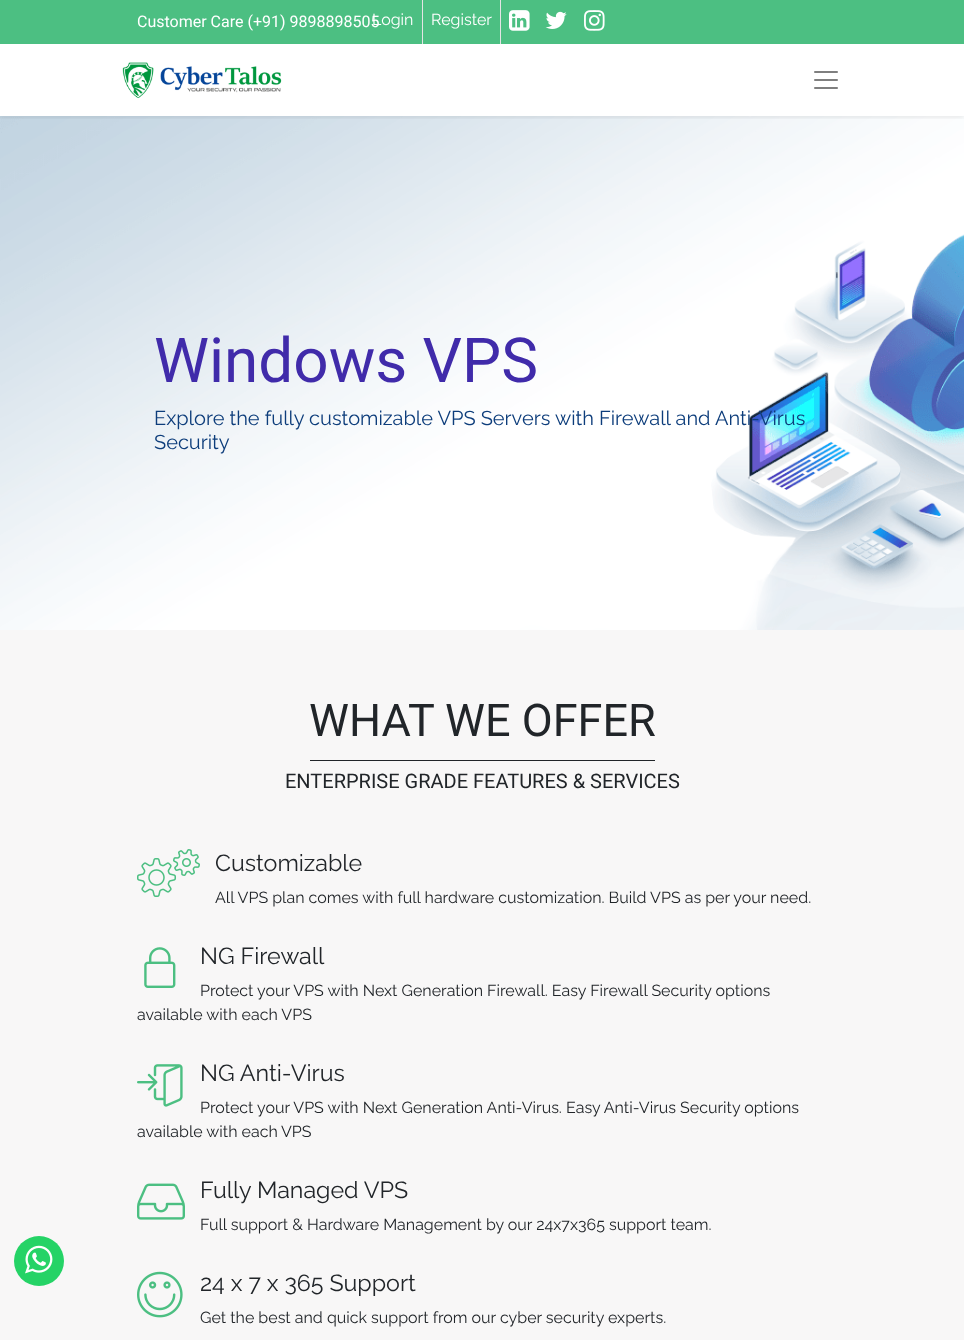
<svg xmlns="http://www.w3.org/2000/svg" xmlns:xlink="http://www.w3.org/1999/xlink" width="964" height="1340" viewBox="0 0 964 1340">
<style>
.cls-1{font:16px Roboto;fill:#ffffff}
.cls-2{font:16px Raleway;fill:#ffffff}
.cls-3{font:62px Roboto;fill:#402baa}
.cls-4{font:20px Raleway;fill:#0d3d7b}
.cls-5{font:45px Roboto;fill:#212529}
.cls-6{font:20px Roboto;fill:#212529}
.cls-7{font:23.25px Raleway;fill:#212529}
.cls-8{font:16px Raleway;fill:#212529}
</style>
<defs>
<clipPath id="clip1"><rect x="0" y="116" width="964" height="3"/></clipPath>
</defs>
<rect width="100%" height="100%" fill="#ffffff"/>
<rect fill="#4cbf82" x="0" y="0" width="964" height="44"/>
<rect fill="#e4e4e4" x="422" y="0" width="1" height="44"/>
<rect fill="#e4e4e4" x="500" y="0" width="1" height="44"/>
<image xlink:href="image0.png" x="509" y="10" width="21" height="21"/>
<image xlink:href="image1.png" x="545" y="11" width="22" height="18"/>
<image xlink:href="image2.png" x="584" y="10" width="21" height="21"/>
<image xlink:href="image6.png" x="0" y="116" width="964" height="514"/>
<g clip-path="url(#clip1)">
<rect fill="#000000" fill-opacity="0.07" filter="blur(2px)" x="0" y="46" width="964" height="72"/>
</g>
<image xlink:href="image3.png" x="122" y="62" width="160" height="37"/>
<image xlink:href="image4.png" x="814" y="71" width="24" height="18"/>
<rect fill="#f8f7f7" x="0" y="630" width="964" height="710"/>
<circle fill="#25d366" cx="39" cy="1261" r="25"/>
<image xlink:href="image5.png" x="25" y="1245" width="28" height="29"/>
<rect fill="#212529" x="310" y="760" width="345" height="1"/>
<image xlink:href="image7.png" x="137" y="849" width="63" height="48"/>
<image xlink:href="image8.png" x="144" y="947" width="32" height="41"/>
<image xlink:href="image9.png" x="137" y="1064" width="46" height="43"/>
<image xlink:href="image10.png" x="137" y="1183" width="48" height="37"/>
<image xlink:href="image11.png" x="137" y="1271" width="46" height="47"/>
<text class="cls-1" x="137" y="27">Customer Care (+91) 9898898505</text>
<text class="cls-2" x="372" y="25">Login</text>
<text class="cls-2" x="431" y="25">Register</text>
<text class="cls-3" x="154" y="382">Windows VPS</text>
<text class="cls-4"><tspan x="154" y="425">Explore the fully customizable VPS Servers with Firewall and Anti-Virus</tspan><tspan x="154" y="449">Security</tspan></text>
<text class="cls-5" x="309" y="736">WHAT WE OFFER</text>
<text class="cls-6" x="285" y="788">ENTERPRISE GRADE FEATURES &amp; SERVICES</text>
<text class="cls-7" x="215" y="871">Customizable</text>
<text class="cls-8" x="215" y="903">All VPS plan comes with full hardware customization. Build VPS as per your need.</text>
<text class="cls-7" x="200" y="964">NG Firewall</text>
<text class="cls-8" x="200" y="996">Protect your VPS with Next Generation Firewall. Easy Firewall Security options</text>
<text class="cls-8" x="137" y="1020">available with each VPS</text>
<text class="cls-7" x="200" y="1081">NG Anti-Virus</text>
<text class="cls-8" x="200" y="1113">Protect your VPS with Next Generation Anti-Virus. Easy Anti-Virus Security options</text>
<text class="cls-8" x="137" y="1137">available with each</text>
<text class="cls-8" x="281" y="1137">VPS</text>
<text class="cls-7" x="200" y="1198">Fully Managed VPS</text>
<text class="cls-8" x="200" y="1230">Full support &amp; Hardware Management by our 24x7x365 support team.</text>
<text class="cls-7" x="200" y="1291">24 x 7 x 365 Support</text>
<text class="cls-8" x="200" y="1323">Get the best and quick support from our cyber security experts.</text>
</svg>
